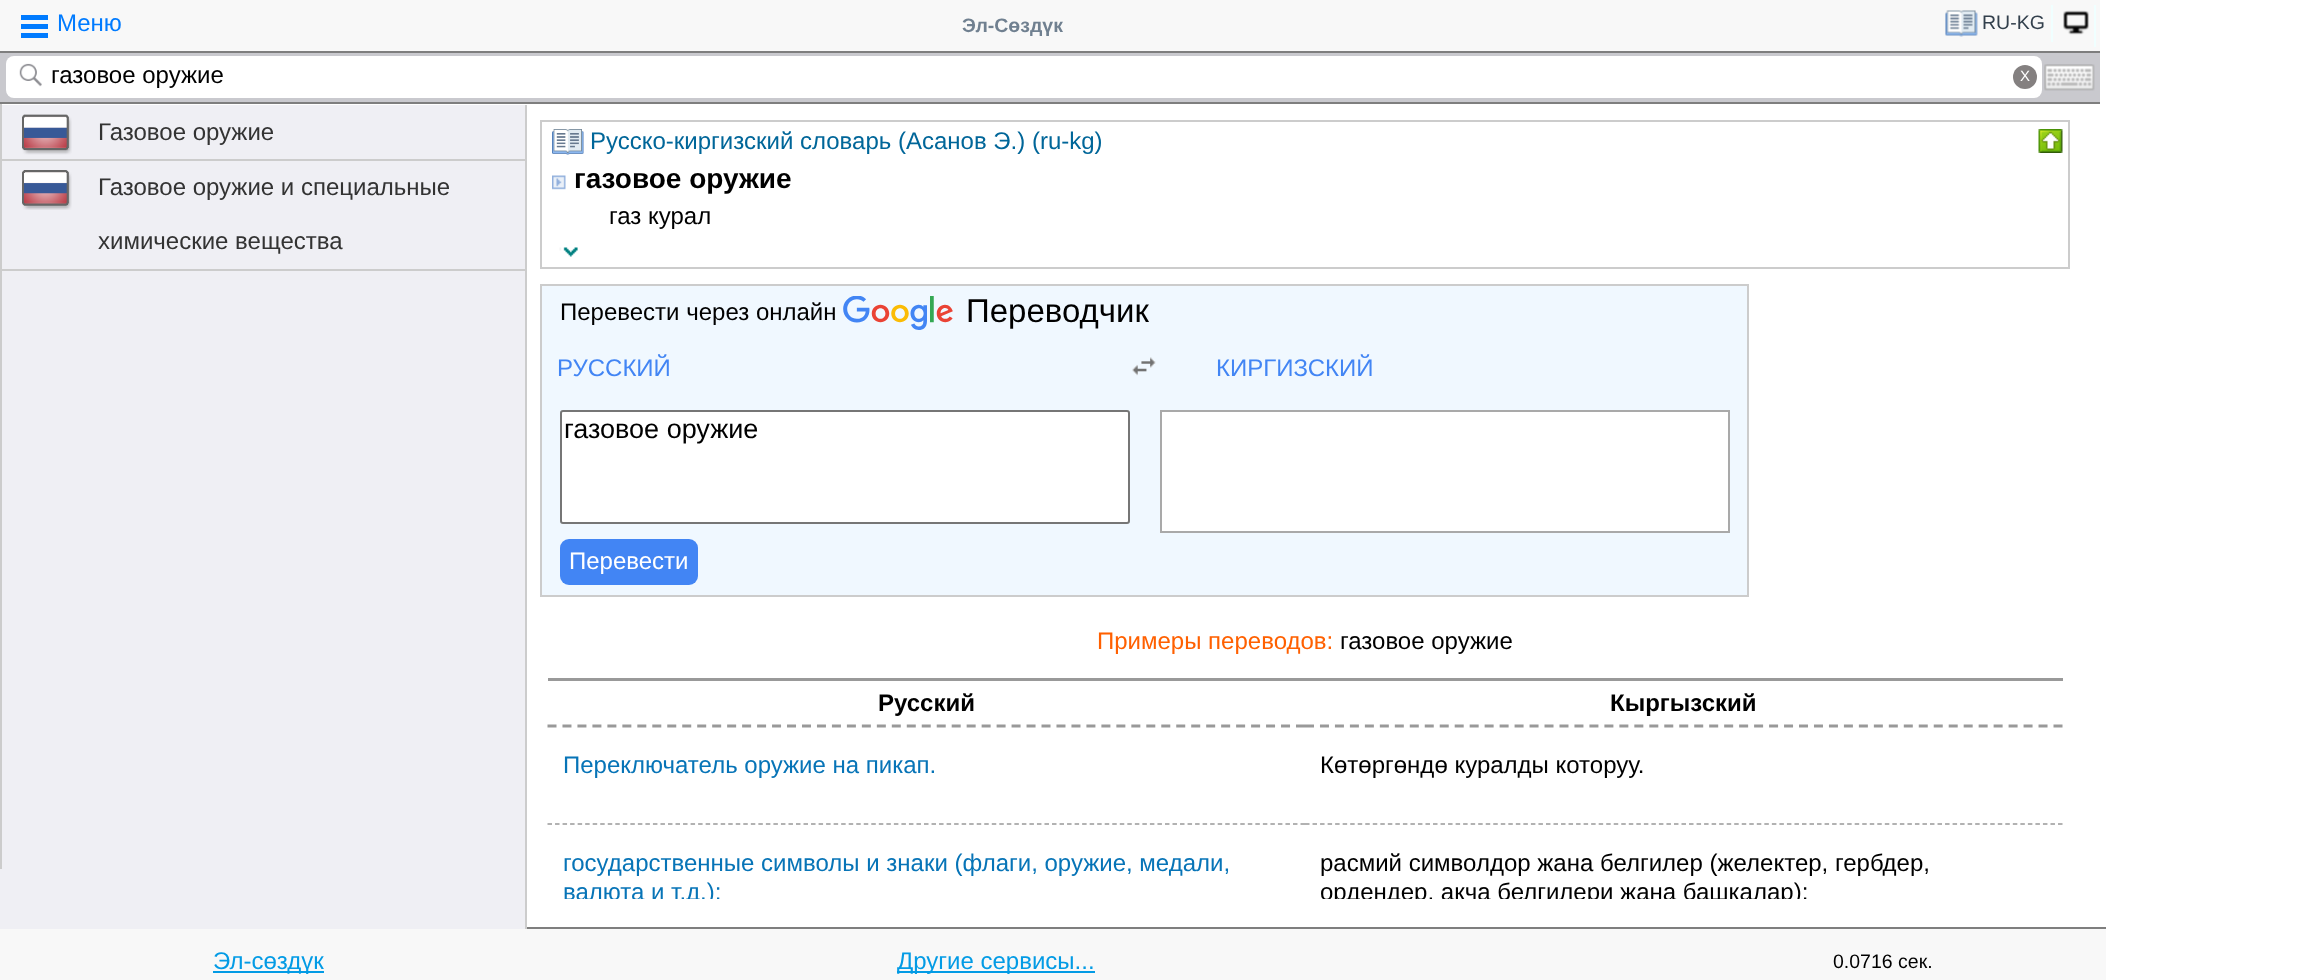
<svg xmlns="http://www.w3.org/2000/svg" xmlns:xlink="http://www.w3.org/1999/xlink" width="2307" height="980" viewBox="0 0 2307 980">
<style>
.cls-1{font:24px Liberation Sans;fill:#007bff}
.cls-2{font:bold 19.5px Liberation Sans;fill:#708090}
.cls-3{font:19.5px Liberation Sans;fill:#33404d}
.cls-4{font:24px Liberation Sans;fill:#000000}
.cls-5{font:15px Liberation Sans;fill:#ffffff}
.cls-6{font:24px Liberation Sans;fill:#333333}
.cls-7{font:24px Liberation Sans;fill:#006699}
.cls-8{font:bold 28px Liberation Sans;fill:#000000}
.cls-9{font:33px Liberation Sans;fill:#000000}
.cls-10{font:24px Liberation Sans;fill:#4285f4}
.cls-11{font:27px Liberation Sans;fill:#000000}
.cls-12{font:24px Liberation Sans;fill:#ffffff}
.cls-13{font:24px Liberation Sans;fill:#ff6000}
.cls-14{font:bold 24px Liberation Sans;fill:#000000}
.cls-15{font:24px Liberation Sans;fill:#0774b7}
.cls-16{font:24px Liberation Sans;fill:#039be5}
.cls-17{font:19.5px Liberation Sans;fill:#000000}
</style>
<defs>
<clipPath id="clip1"><rect x="525" y="105" width="1560" height="794"/></clipPath>
</defs>
<rect width="100%" height="100%" fill="#ffffff"/>
<rect fill="#f8f8f8" x="0" y="0" width="2100" height="51"/>
<rect fill="#7e7e7e" x="0" y="51" width="2100" height="2"/>
<rect fill="#007bff" x="21" y="15" width="27" height="5"/>
<rect fill="#007bff" x="21" y="24" width="27" height="5"/>
<rect fill="#007bff" x="21" y="33" width="27" height="5"/>
<rect fill="#f0ffff" x="2051" y="5" width="2" height="37"/>
<image xlink:href="image0.png" x="1945" y="10" width="33" height="27"/>
<rect fill="#f0ffff" x="2094" y="5" width="2" height="42"/>
<image xlink:href="image1.png" x="2063" y="10" width="26" height="25"/>
<rect fill="#c9c9ce" x="0" y="53" width="2100" height="49"/>
<rect fill="#7e7e7e" x="0" y="102" width="2100" height="2"/>
<rect fill="#ffffff" x="6" y="56" width="2036" height="42" rx="8"/>
<image xlink:href="image2.png" x="19" y="63" width="23" height="24"/>
<circle fill="#848080" cx="2025" cy="77" r="12"/>
<image xlink:href="image3.png" x="2044" y="64" width="51" height="27"/>
<rect fill="#efeff4" x="0" y="105" width="525" height="824"/>
<rect fill="#cccccc" x="0" y="159" width="525" height="2"/>
<rect fill="#cccccc" x="0" y="269" width="525" height="2"/>
<rect fill="#cccccc" x="0" y="104" width="2" height="765"/>
<rect fill="#cccccc" x="525" y="105" width="2" height="824"/>
<image xlink:href="image4.png" x="22" y="114" width="50" height="41"/>
<image xlink:href="image5.png" x="22" y="170" width="50" height="40"/>
<rect fill="none" stroke="#cccccc" stroke-width="2" x="541" y="121" width="1528" height="147"/>
<image xlink:href="image6.png" x="552" y="129" width="32" height="26"/>
<image xlink:href="image7.png" x="2038" y="129" width="25" height="24"/>
<image xlink:href="image8.png" x="552" y="175" width="14" height="15"/>
<image xlink:href="image9.png" x="559" y="247" width="19" height="10"/>
<rect fill="#f0f8ff" stroke="#cccccc" stroke-width="2" x="541" y="285" width="1207" height="311"/>
<image xlink:href="image10.png" x="843" y="296" width="110" height="34"/>
<image xlink:href="image11.png" x="1132" y="357" width="24" height="19"/>
<rect fill="#ffffff" stroke="#767676" stroke-width="2" x="561" y="411" width="568" height="112" rx="2"/>
<rect fill="#ffffff" stroke="#a9a9a9" stroke-width="2" x="1161" y="411" width="568" height="121"/>
<rect fill="#4285f4" x="560" y="539" width="138" height="46" rx="9"/>
<rect fill="#999999" x="548" y="678" width="1515" height="3"/>
<path fill="none" stroke="#999999" stroke-width="3" stroke-dasharray="9 5.97" d="M547.5 726H1305"/>
<path fill="none" stroke="#999999" stroke-width="3" stroke-dasharray="9 5.97" d="M1305 726H2062.5"/>
<path fill="none" stroke="#999999" stroke-width="1.5" stroke-dasharray="4.5 3.03" d="M547.5 824H1305"/>
<path fill="none" stroke="#999999" stroke-width="1.5" stroke-dasharray="4.5 3.03" d="M1305 824H2062.5"/>
<rect fill="#f8f8f8" x="0" y="929" width="2106" height="51"/>
<rect fill="#7e7e7e" x="527" y="927" width="1579" height="2"/>
<rect fill="#039be5" x="213" y="971" width="111" height="2"/>
<rect fill="#039be5" x="897" y="971" width="198" height="2"/>
<text class="cls-1" x="57" y="31">Меню</text>
<text class="cls-2" x="962" y="32">Эл-Сөздүк</text>
<text class="cls-3" x="1982" y="29">RU-KG</text>
<text class="cls-4" x="51" y="83">газовое оружие</text>
<text class="cls-5" x="2020" y="81">X</text>
<text class="cls-6" x="98" y="140">Газовое оружие</text>
<text class="cls-6" x="98" y="195">Газовое оружие и специальные</text>
<text class="cls-6" x="98" y="249">химические вещества</text>
<text class="cls-7" x="590" y="149">Русско-киргизский словарь (Асанов Э.) (ru-kg)</text>
<text class="cls-8" x="574" y="188">газовое оружие</text>
<text class="cls-4" x="609" y="224">газ курал</text>
<text class="cls-4" x="560" y="320">Перевести через онлайн</text>
<text class="cls-9" x="966" y="322">Переводчик</text>
<text class="cls-10" x="557" y="376">РУССКИЙ</text>
<text class="cls-10" x="1216" y="376">КИРГИЗСКИЙ</text>
<text class="cls-11" x="564" y="438">газовое оружие</text>
<text class="cls-12" x="569" y="569">Перевести</text>
<text class="cls-13" x="1097" y="649">Примеры переводов:</text>
<text class="cls-4" x="1340" y="649">газовое оружие</text>
<text class="cls-14" x="878" y="711">Русский</text>
<text class="cls-14" x="1610" y="711">Кыргызский</text>
<text class="cls-15" x="563" y="773">Переключатель оружие на пикап.</text>
<text class="cls-4" x="1320" y="773">Көтөргөндө куралды которуу.</text>
<text class="cls-15" x="563" y="871">государственные символы и знаки (флаги, оружие, медали,</text>
<g clip-path="url(#clip1)">
<text class="cls-15" x="563" y="900">валюта и т.д.);</text>
</g>
<text class="cls-4" x="1320" y="871">расмий символдор жана белгилер (желектер, гербдер,</text>
<g clip-path="url(#clip1)">
<text class="cls-4" x="1320" y="900">ордендер, акча белгилери жана башкалар);</text>
</g>
<text class="cls-16" x="213" y="969">Эл-сөздүк</text>
<text class="cls-16" x="897" y="969">Другие сервисы...</text>
<text class="cls-17" x="1833" y="968">0.0716 сек.</text>
</svg>
